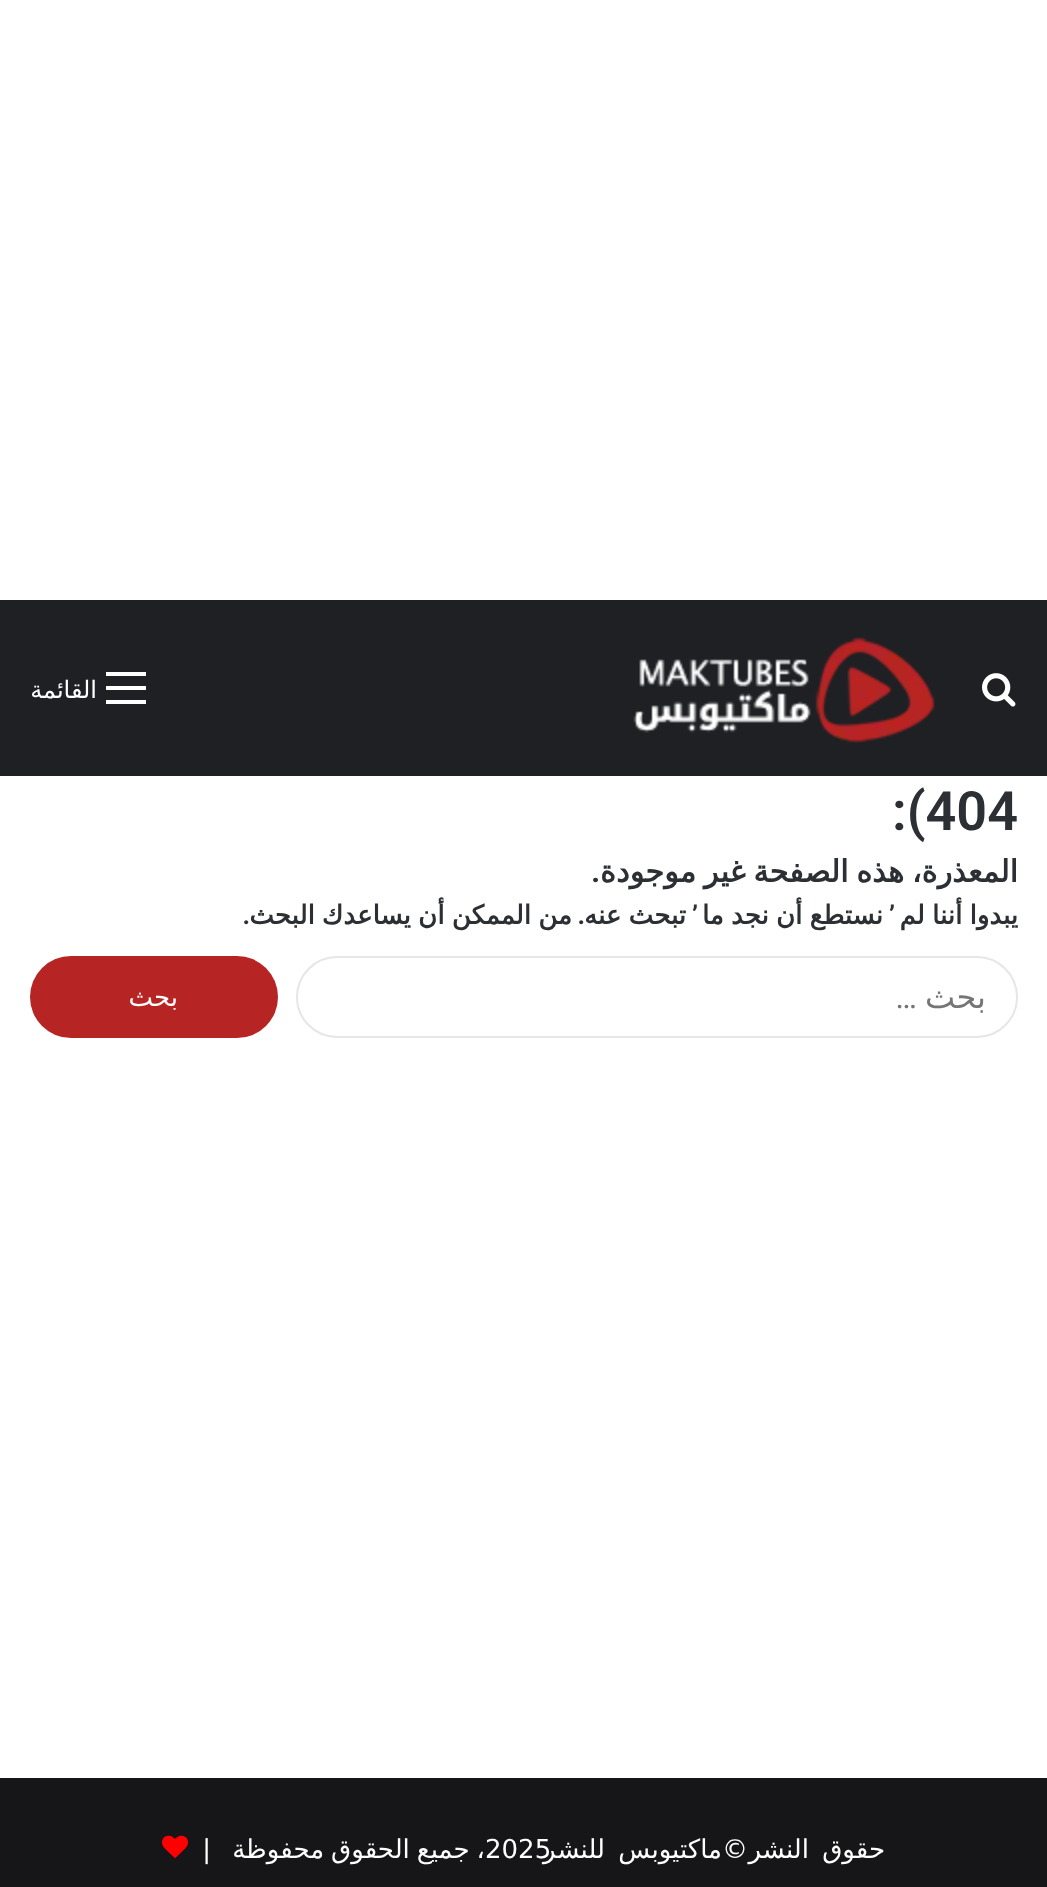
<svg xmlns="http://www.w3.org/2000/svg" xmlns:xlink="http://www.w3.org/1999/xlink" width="1047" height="1887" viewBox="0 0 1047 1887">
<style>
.cls-1{font:24px DejaVu Sans;direction:rtl;fill:#ffffff}
.cls-2{font:600 54px Roboto;fill:#2c2f34}
.cls-3{font:bold 30.4px DejaVu Sans;direction:rtl;fill:#2c2f34}
.cls-4{font:bold 30.4px Roboto;direction:rtl;fill:#2c2f34}
.cls-5{font:bold 26px DejaVu Sans;direction:rtl;fill:#2c2f34}
.cls-6{font:bold 26px Roboto;direction:rtl;fill:#2c2f34}
.cls-7{font:32px DejaVu Sans;direction:rtl;fill:#757575}
.cls-8{font:32px Roboto;direction:rtl;fill:#757575}
.cls-9{font:26px DejaVu Sans;direction:rtl;fill:#ffffff}
.cls-10{font:26px DejaVu Sans;fill:#ffffff}
</style>
<rect width="100%" height="100%" fill="#ffffff"/>
<rect fill="#1f2024" x="0" y="600" width="1047" height="176"/>
<image xlink:href="image0.png" x="982" y="673" width="34" height="34"/>
<image xlink:href="image1.png" x="633" y="637" width="302" height="106"/>
<rect fill="#ffffff" x="106" y="686" width="40" height="4"/>
<rect fill="#ffffff" x="106" y="672" width="40" height="4"/>
<rect fill="#ffffff" x="106" y="700" width="40" height="4"/>
<rect fill="none" stroke="#e6e6e6" stroke-width="2" x="297" y="957" width="720" height="80" rx="40"/>
<rect fill="#b72424" x="30" y="956" width="248" height="82" rx="41"/>
<rect fill="#161619" x="0" y="1778" width="1047" height="109"/>
<image xlink:href="image2.png" x="162" y="1835" width="26" height="23"/>
<text class="cls-1" x="97" y="698">القائمة</text>
<text class="cls-2" x="892" y="830">:(404</text>
<text class="cls-3" x="1018" y="882" word-spacing="-2">المعذرة، هذه الصفحة غير موجودة</text>
<text class="cls-4" x="600" y="882">.</text>
<text class="cls-5" x="1018" y="924" word-spacing="-1">يبدوا أننا لم</text>
<text class="cls-6" x="895" y="924">’</text>
<text class="cls-5" x="883" y="924" word-spacing="-1">نستطع أن نجد ما</text>
<text class="cls-6" x="698" y="924">’</text>
<text class="cls-5" x="572" y="924" word-spacing="-1">من الممكن أن يساعدك البحث</text>
<text class="cls-5" x="686" y="924" word-spacing="-1">تبحث عنه</text>
<text class="cls-6" x="585" y="924">.</text>
<text class="cls-6" x="250" y="924">.</text>
<text class="cls-7" x="986" y="1008">بحث</text>
<text class="cls-8" x="917" y="1008">…</text>
<text class="cls-9" x="178" y="1006">بحث</text>
<text class="cls-9" x="885" y="1858" word-spacing="5">حقوق النشر</text>
<text class="cls-10" x="722" y="1858">©</text>
<text class="cls-10" x="485" y="1858">2025</text>
<text class="cls-9" x="722" y="1858" word-spacing="5">ماكتيوبس للنشر</text>
<text class="cls-9" xml:space="preserve" x="485" y="1858" word-spacing="-1.25">، جميع الحقوق محفوظة   |</text>
</svg>
